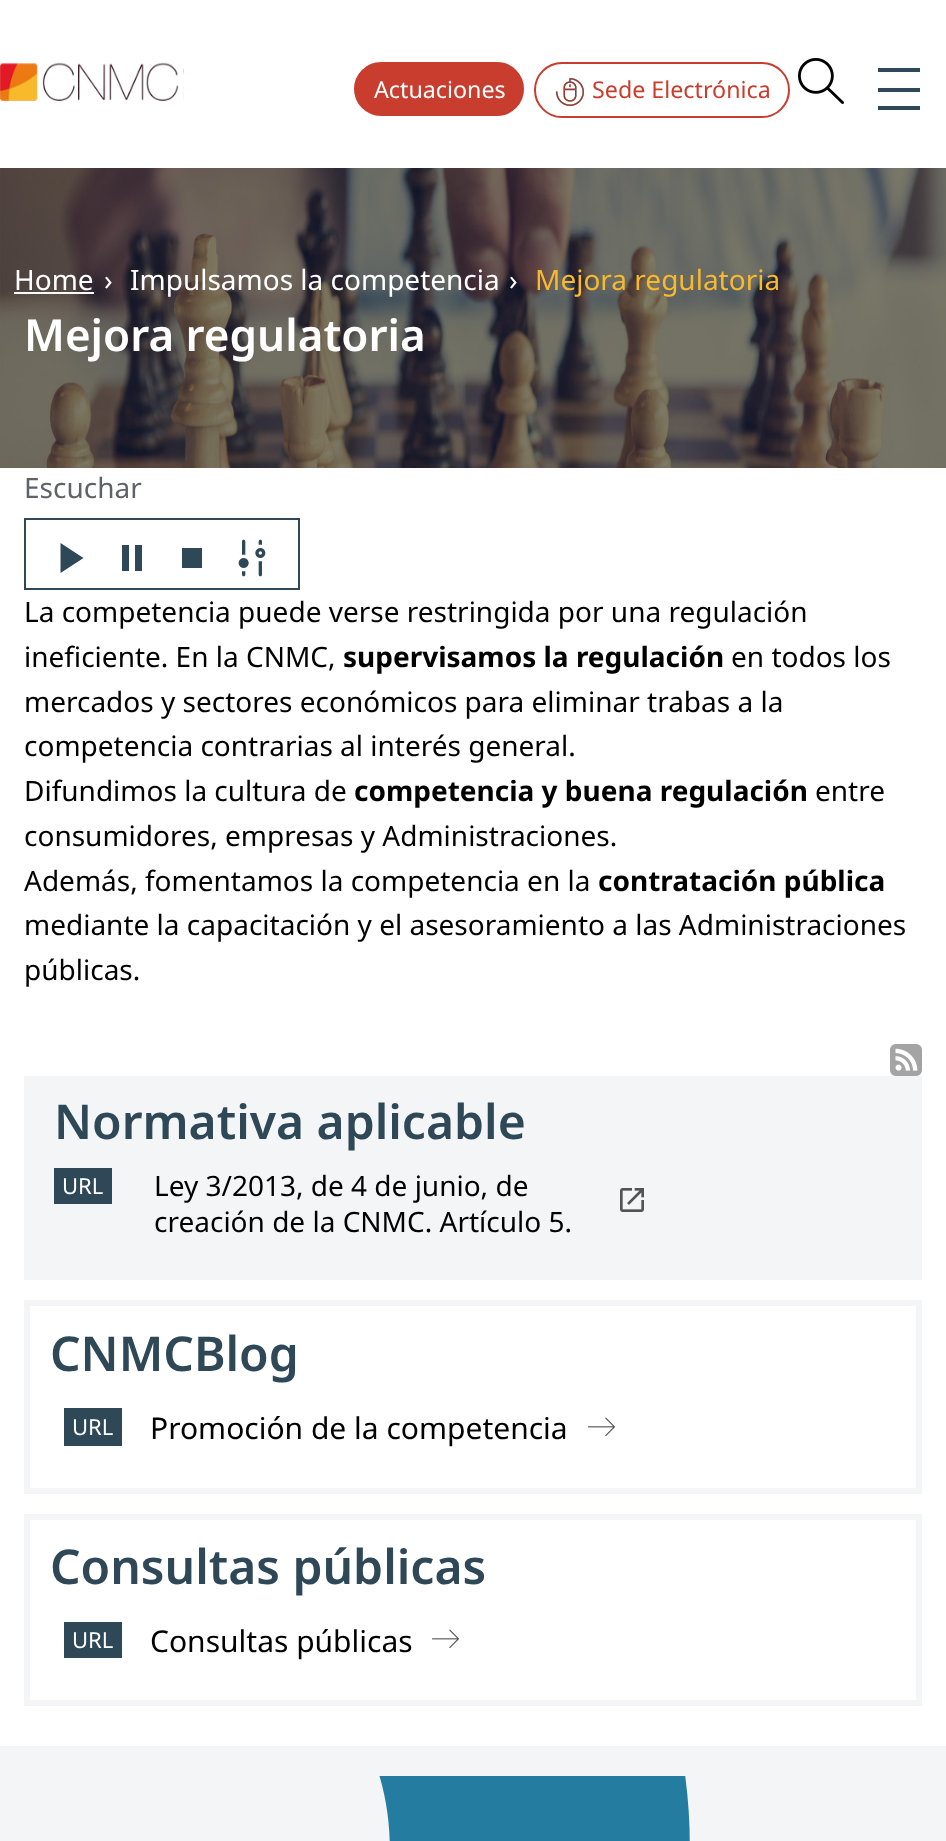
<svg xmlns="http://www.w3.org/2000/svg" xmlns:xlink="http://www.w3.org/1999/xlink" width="946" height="1841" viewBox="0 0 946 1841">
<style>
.cls-1{font:23.25px Noto Sans;fill:#ffffff}
.cls-2{font:23.25px Noto Sans;fill:#c83d2d}
.cls-3{font:28px Noto Sans;fill:#ffffff}
.cls-4{font:28px Noto Sans;fill:#f9b92d}
.cls-5{font:600 44px Noto Sans;fill:#ffffff}
.cls-6{font:28px Noto Sans;fill:#5f6368}
.cls-7{font:28px Noto Sans;fill:#000000}
.cls-8{font:bold 28px Noto Sans;fill:#000000}
.cls-9{font:600 48px Noto Sans;fill:#2f4858}
.cls-10{font:22px Noto Sans;fill:#ffffff}
.cls-11{font:30px Noto Sans;fill:#000000}
</style>
<rect width="100%" height="100%" fill="#ffffff"/>
<image xlink:href="image0.png" x="0" y="62" width="184" height="39"/>
<rect fill="#c83d2d" stroke="#c83d2d" stroke-width="2" x="355" y="63" width="168" height="52" rx="26"/>
<rect fill="none" stroke="#c83d2d" stroke-width="2" x="535" y="63" width="254" height="54" rx="27"/>
<image xlink:href="image1.png" x="556" y="78" width="28" height="28"/>
<image xlink:href="image2.png" x="798" y="58" width="46" height="46"/>
<rect fill="#2f4858" x="878" y="68" width="42" height="4"/>
<rect fill="#2f4858" x="878" y="88" width="42" height="4"/>
<rect fill="#2f4858" x="878" y="106" width="42" height="4"/>
<image xlink:href="image3.png" x="0" y="168" width="946" height="300"/>
<rect fill="#ffffff" x="14" y="292" width="80" height="2"/>
<rect fill="none" stroke="#2f4858" stroke-width="2" x="25" y="519" width="274" height="70"/>
<path fill="#2f4858" d="M60.5 543L83.5 558L60.5 573Z"/>
<rect fill="#2f4858" x="122" y="545" width="7" height="26"/>
<rect fill="#2f4858" x="135" y="545" width="7" height="26"/>
<rect fill="#2f4858" x="182" y="548" width="20" height="20"/>
<image xlink:href="image4.png" x="238" y="539" width="28" height="38"/>
<image xlink:href="image5.png" x="890" y="1044" width="32" height="32"/>
<rect fill="#f4f5f6" x="24" y="1076" width="898" height="204"/>
<rect fill="#2f4858" x="54" y="1168" width="58" height="36"/>
<image xlink:href="image6.png" x="620" y="1188" width="24" height="24"/>
<rect fill="none" stroke="#f4f5f6" stroke-width="6" x="27" y="1303" width="892" height="188"/>
<rect fill="#2f4858" x="64" y="1408" width="58" height="38"/>
<image xlink:href="image7.png" x="587" y="1417" width="28" height="19"/>
<rect fill="none" stroke="#f4f5f6" stroke-width="6" x="27" y="1517" width="892" height="186"/>
<rect fill="#2f4858" x="64" y="1622" width="58" height="36"/>
<image xlink:href="image7.png" x="431" y="1629" width="28" height="19"/>
<rect fill="#f4f5f6" x="0" y="1746" width="946" height="95"/>
<image xlink:href="image8.png" x="379" y="1776" width="311" height="65"/>
<text class="cls-1" x="374" y="98">Actuaciones</text>
<text class="cls-2" x="592" y="98">Sede Electrónica</text>
<text class="cls-3" x="14" y="290">Home</text>
<text class="cls-3" x="104" y="290">›</text>
<text class="cls-3" x="130" y="290">Impulsamos la competencia</text>
<text class="cls-3" x="509" y="290">›</text>
<text class="cls-4" x="535" y="290">Mejora regulatoria</text>
<text class="cls-5" x="24" y="351">Mejora regulatoria</text>
<text class="cls-6" x="24" y="498">Escuchar</text>
<text class="cls-7"><tspan x="24" y="622">La competencia puede verse restringida por una regulación</tspan><tspan x="24" y="667">ineficiente. En la CNMC,</tspan></text>
<text class="cls-8" x="343" y="667">supervisamos la regulación</text>
<text class="cls-7" x="731" y="667">en todos los</text>
<text class="cls-7"><tspan x="24" y="712">mercados y sectores económicos para eliminar trabas a la</tspan><tspan x="24" y="756">competencia contrarias al interés general.</tspan><tspan x="24" y="801">Difundimos la cultura de</tspan></text>
<text class="cls-8" x="354" y="801">competencia y buena regulación</text>
<text class="cls-7" x="815" y="801">entre</text>
<text class="cls-7"><tspan x="24" y="846">consumidores, empresas y Administraciones.</tspan><tspan x="24" y="891">Además, fomentamos la competencia en la</tspan></text>
<text class="cls-8" x="598" y="891">contratación pública</text>
<text class="cls-7"><tspan x="24" y="935">mediante la capacitación y el asesoramiento a las Administraciones</tspan><tspan x="24" y="980">públicas.</tspan></text>
<text class="cls-9" x="54" y="1139">Normativa aplicable</text>
<text class="cls-10" x="62" y="1194">URL</text>
<text class="cls-7"><tspan x="154" y="1196">Ley 3/2013, de 4 de junio, de</tspan><tspan x="154" y="1232">creación de la CNMC. Artículo 5.</tspan></text>
<text class="cls-9" x="50" y="1371">CNMCBlog</text>
<text class="cls-10" x="72" y="1435">URL</text>
<text class="cls-11" x="150" y="1439">Promoción de la competencia</text>
<text class="cls-9" x="50" y="1584">Consultas públicas</text>
<text class="cls-10" x="72" y="1648">URL</text>
<text class="cls-11" x="150" y="1652">Consultas públicas</text>
</svg>
